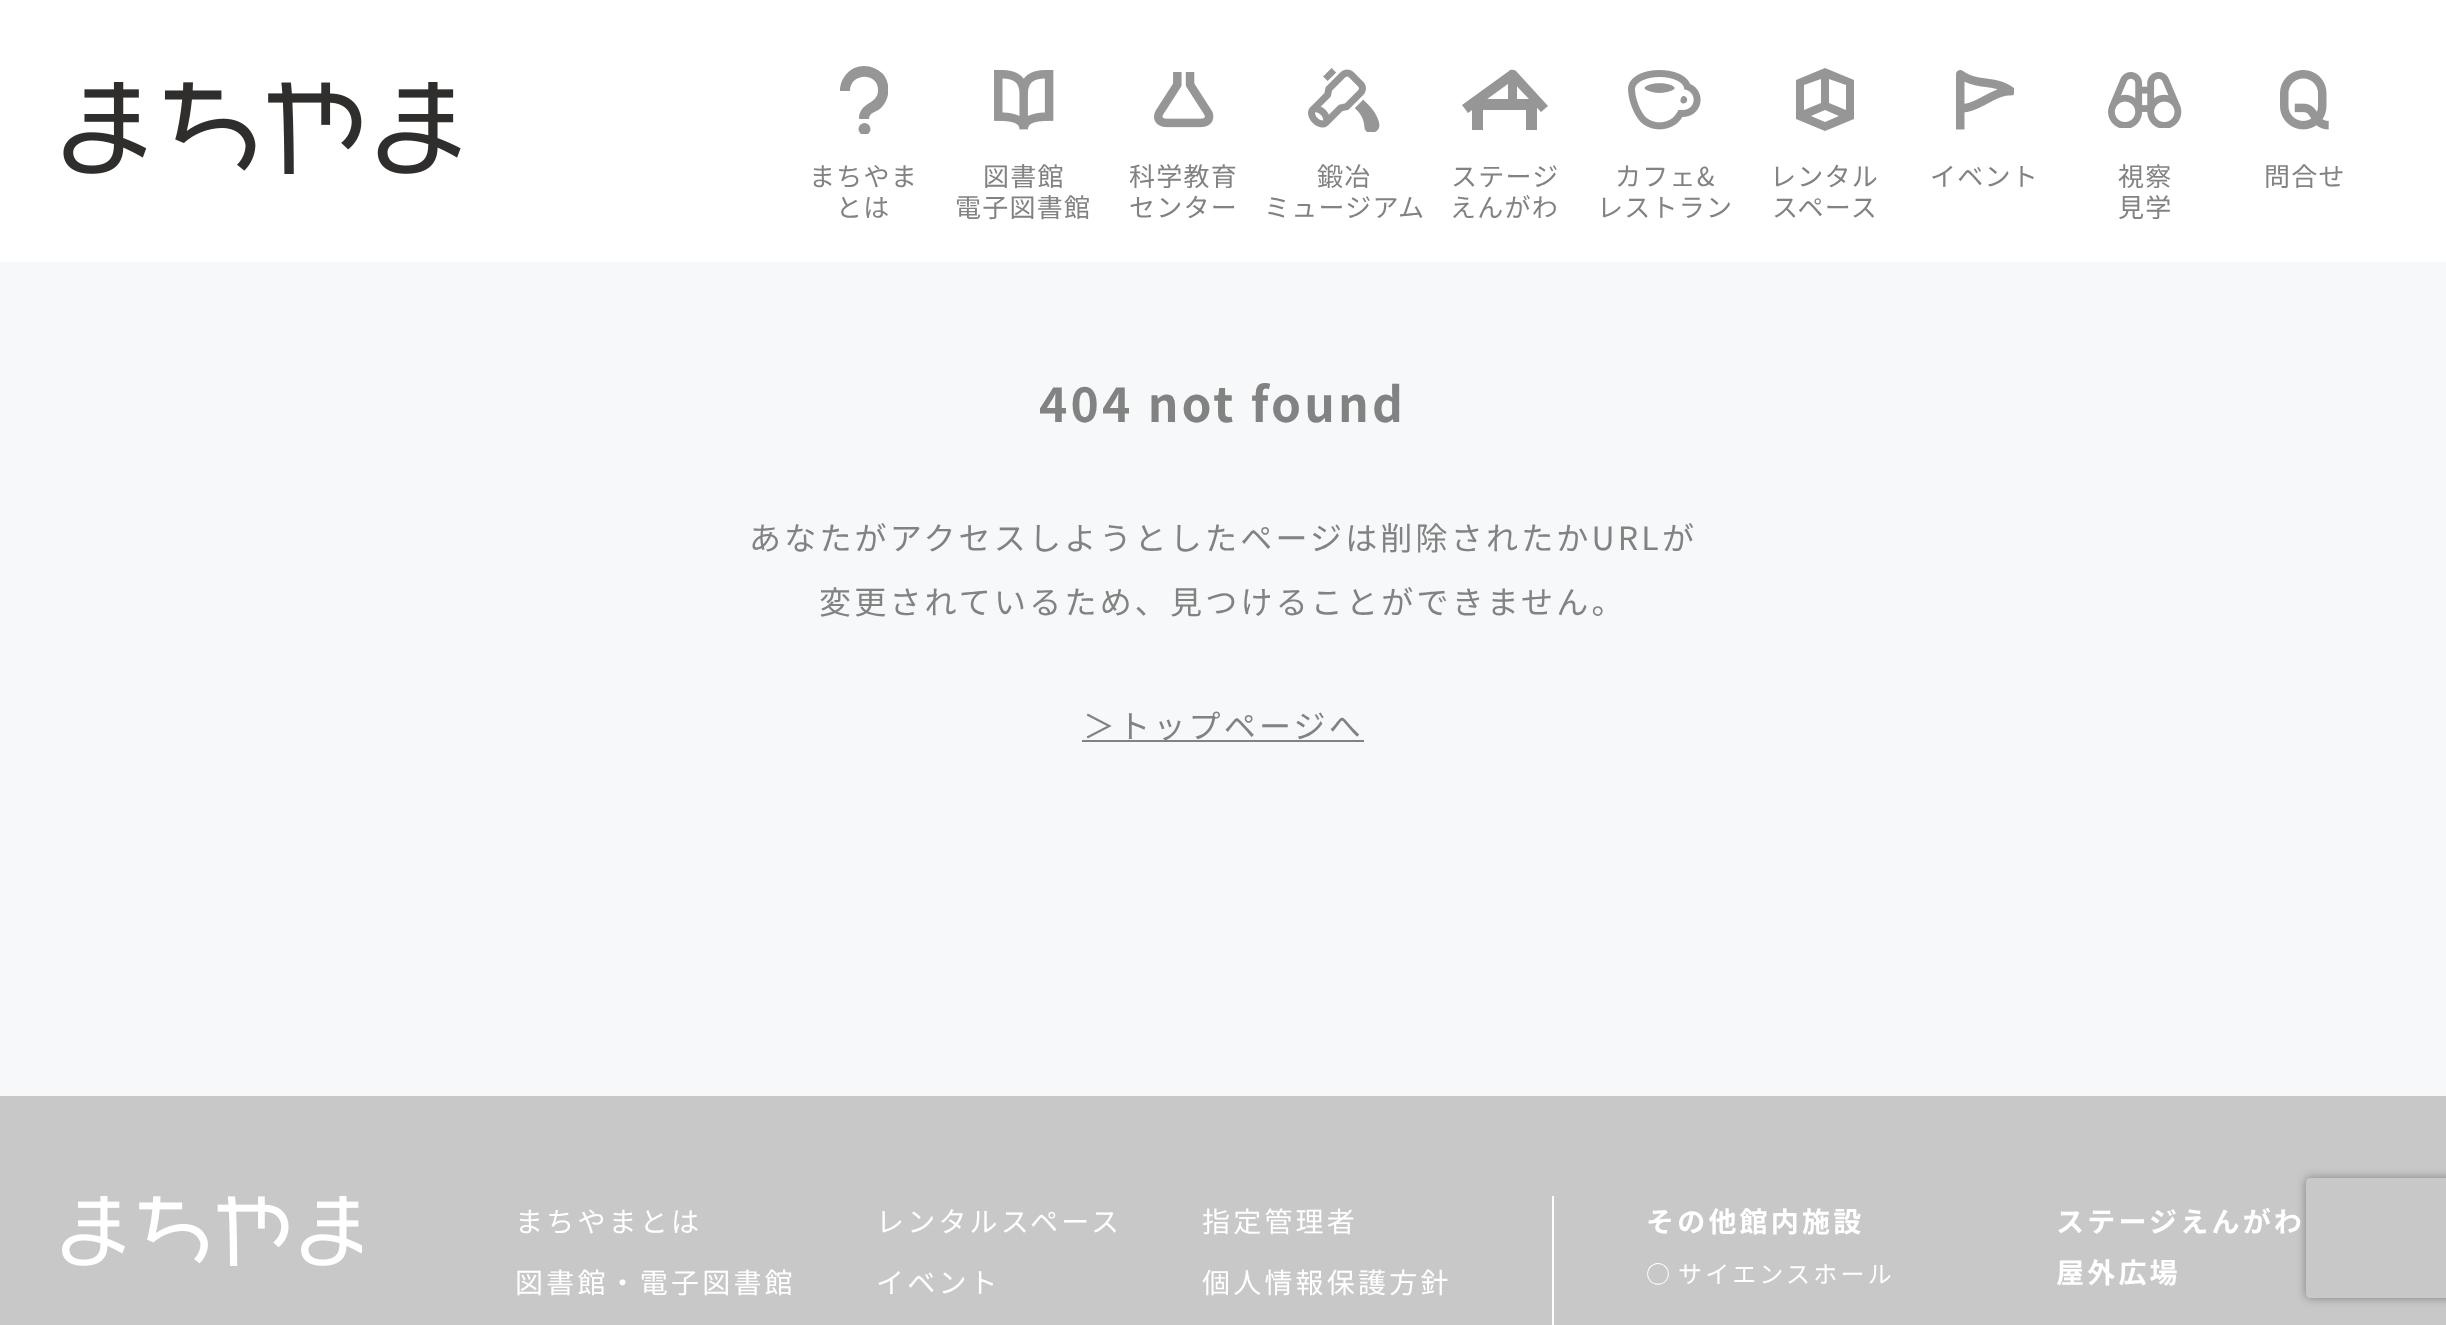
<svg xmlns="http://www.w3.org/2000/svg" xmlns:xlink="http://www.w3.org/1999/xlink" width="2446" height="1325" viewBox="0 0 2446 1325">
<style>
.cls-1{font:26px Noto Sans JP;letter-spacing:1.25px;fill:#828282}
.cls-2{font:bold 48px Noto Sans JP;letter-spacing:3.2px;fill:#828282}
.cls-3{font:32px Noto Sans JP;letter-spacing:3.2px;fill:#828282}
.cls-4{font:28px Noto Sans JP;letter-spacing:3.2px;fill:#ffffff}
.cls-5{font:bold 28px Noto Sans JP;letter-spacing:3.2px;fill:#ffffff}
.cls-6{font:24px Noto Sans JP;letter-spacing:3.2px;fill:#ffffff}
</style>
<defs>
<clipPath id="clip1"><rect x="840" y="66" width="48" height="68"/></clipPath>
<clipPath id="clip2"><rect x="1462" y="70" width="86" height="60"/></clipPath>
<clipPath id="clip3"><path d="M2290 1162H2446V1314H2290ZM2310 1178H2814C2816 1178 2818 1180 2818 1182V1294C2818 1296 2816 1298 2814 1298H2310C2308 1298 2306 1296 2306 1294V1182C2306 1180 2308 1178 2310 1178Z" clip-rule="evenodd"/></clipPath>
</defs>
<rect width="100%" height="100%" fill="#f6f8f9"/>
<rect fill="#ffffff" x="0" y="0" width="2446" height="262"/>
<image xlink:href="image0.png" x="63" y="82" width="398" height="92"/>
<g clip-path="url(#clip1)">
<circle fill="#969696" cx="864.5" cy="129" r="6"/>
<path fill="#969696" d="M864 66C850 66 840 78 840 91H850C850 73 877 72 878 89C879 105 859 101 859 119H869C869 112 877 112 881 108C890 99 891 84 883 74C878 69 871 66 864 66Z"/>
</g>
<image xlink:href="image1.png" x="994" y="70" width="60" height="60"/>
<image xlink:href="image2.png" x="1154" y="72" width="60" height="56"/>
<image xlink:href="image3.png" x="1308" y="68" width="72" height="64"/>
<path fill="#969696" d="M1468 113L1462 105L1509 71C1511 69 1514 70 1516 71L1548 106L1541 112L1512 81Z"/>
<g clip-path="url(#clip2)">
<path fill="#969696" d="M1537 132H1526V110H1483V132H1472V104C1472 103 1472 102 1473 101C1474 100 1476 99 1477 99H1532C1535 99 1537 101 1537 104Z"/>
</g>
<rect fill="#969696" x="1508" y="81" width="9" height="18"/>
<image xlink:href="image4.png" x="1628" y="70" width="73" height="60"/>
<path fill="#969696" d="M1854 80L1825 68L1796 80V119L1825 131L1854 119ZM1825 110L1839 116L1825 122L1811 116ZM1846 110L1829 103V79L1846 85ZM1821 79V103L1804 110V85Z"/>
<image xlink:href="image5.png" x="1956" y="70" width="58" height="60"/>
<image xlink:href="image6.png" x="2108" y="72" width="74" height="56"/>
<image xlink:href="image7.png" x="2280" y="70" width="49" height="60"/>
<rect fill="#828282" x="1082" y="740" width="282" height="2"/>
<rect fill="#c8c8c8" x="0" y="1096" width="2446" height="229"/>
<image xlink:href="image8.png" x="62" y="1196" width="300" height="70"/>
<rect fill="#ffffff" x="1552" y="1196" width="2" height="129"/>
<g clip-path="url(#clip3)">
<rect fill="#808080" filter="blur(5px)" x="2306" y="1178" width="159" height="120" rx="4"/>
</g>
<text class="cls-1" x="809" y="186">まちやま</text>
<text class="cls-1" x="836" y="217">とは</text>
<text class="cls-1" x="983" y="186">図書館</text>
<text class="cls-1" x="955" y="217">電子図書館</text>
<text class="cls-1"><tspan x="1129" y="186">科学教育</tspan><tspan x="1129" y="217">センター</tspan></text>
<text class="cls-1" x="1317" y="186">鍛冶</text>
<text class="cls-1" x="1264" y="217">ミュージアム</text>
<text class="cls-1" x="1451" y="186">ステージ</text>
<text class="cls-1" x="1450" y="217">えんがわ</text>
<text class="cls-1" x="1615" y="186">カフェ&amp;</text>
<text class="cls-1" x="1597" y="217">レストラン</text>
<text class="cls-1" x="1770" y="186">レンタル</text>
<text class="cls-1" x="1772" y="217">スペース</text>
<text class="cls-1" x="1930" y="186">イベント</text>
<text class="cls-1"><tspan x="2118" y="186">視察</tspan><tspan x="2118" y="217">見学</tspan></text>
<text class="cls-1" x="2264" y="186">問合せ</text>
<text class="cls-2" x="1039" y="422">404 not found</text>
<text class="cls-3" x="749" y="550">あなたがアクセスしようとしたページは削除されたかURLが</text>
<text class="cls-3" x="819" y="614">変更されているため、見つけることができません。</text>
<text class="cls-3" x="1083" y="738">＞トップページへ</text>
<text class="cls-4" x="515" y="1232">まちやまとは</text>
<text class="cls-4" x="515" y="1293">図書館・電子図書館</text>
<text class="cls-4" x="876" y="1232">レンタルスペース</text>
<text class="cls-4" x="876" y="1293">イベント</text>
<text class="cls-4" x="1202" y="1232">指定管理者</text>
<text class="cls-4" x="1202" y="1293">個人情報保護方針</text>
<text class="cls-5" x="1646" y="1232">その他館内施設</text>
<text class="cls-6" x="1646" y="1283">○</text>
<text class="cls-6" x="1678" y="1283">サイエンスホール</text>
<text class="cls-5"><tspan x="2056" y="1232">ステージえんがわ</tspan><tspan x="2056" y="1283">屋外広場</tspan></text>
</svg>
